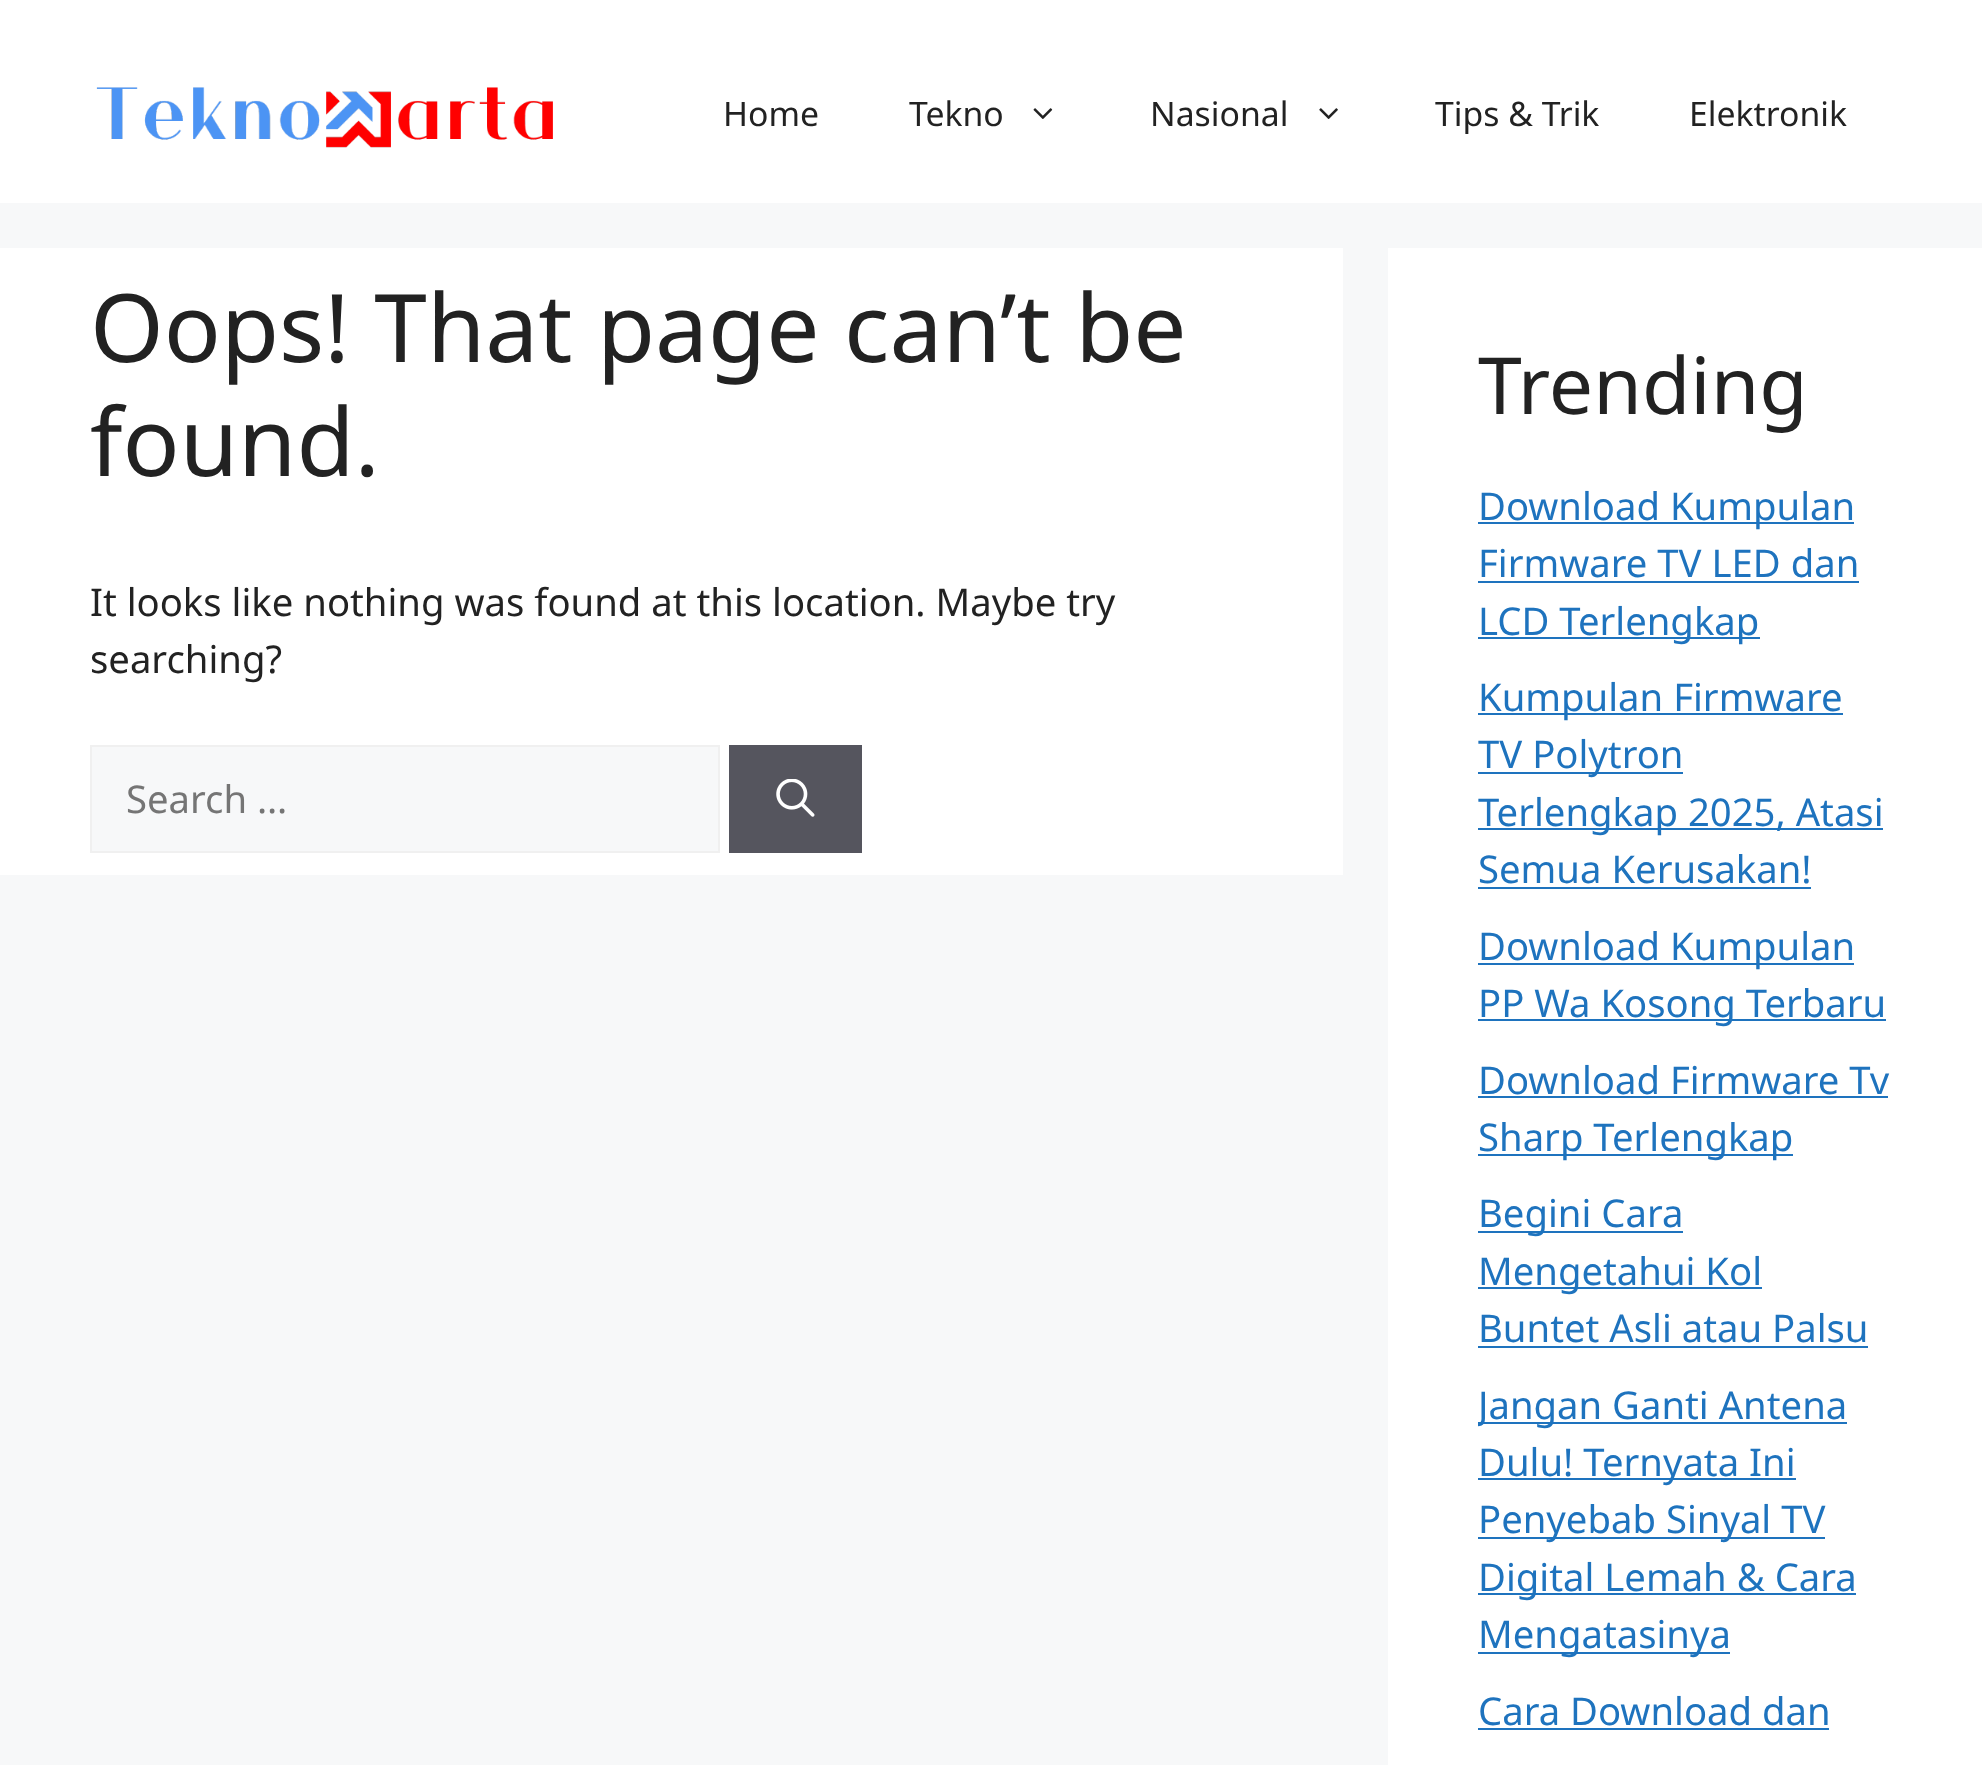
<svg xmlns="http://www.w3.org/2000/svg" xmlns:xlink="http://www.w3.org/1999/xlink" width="1982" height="1765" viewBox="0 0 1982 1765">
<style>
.cls-1{font:33.75px Noto Sans;fill:#222222}
.cls-2{font:94.5px Noto Sans;fill:#222222}
.cls-3{font:38.25px Noto Sans;fill:#222222}
.cls-4{font:38.25px Noto Sans;fill:#757575}
.cls-5{font:78.75px Noto Sans;fill:#222222}
.cls-6{font:38.25px Noto Sans;fill:#1e73be}
</style>
<defs>
<clipPath id="clip1"><rect x="1478" y="1377" width="414" height="286"/></clipPath>
</defs>
<rect width="100%" height="100%" fill="#f7f8f9"/>
<rect fill="#ffffff" x="0" y="0" width="1982" height="203"/>
<image xlink:href="image0.png" x="96" y="87" width="457" height="61"/>
<image xlink:href="image1.png" x="1033" y="108" width="20" height="11"/>
<image xlink:href="image2.png" x="1319" y="108" width="19" height="11"/>
<rect fill="#ffffff" x="0" y="248" width="1343" height="627"/>
<rect fill="#f7f8f9" stroke="#f0f0f0" stroke-width="2" x="91" y="746" width="628" height="106"/>
<rect fill="#55555e" x="729" y="745" width="133" height="108"/>
<image xlink:href="image3.png" x="776" y="779" width="39" height="38"/>
<rect fill="#ffffff" x="1388" y="248" width="594" height="1517"/>
<rect fill="#1e73be" x="1478" y="522" width="376" height="2"/>
<rect fill="#1e73be" x="1478" y="581" width="381" height="2"/>
<rect fill="#1e73be" x="1478" y="637" width="282" height="2"/>
<rect fill="#1e73be" x="1478" y="713" width="365" height="2"/>
<rect fill="#1e73be" x="1478" y="772" width="205" height="2"/>
<rect fill="#1e73be" x="1478" y="828" width="405" height="2"/>
<rect fill="#1e73be" x="1478" y="887" width="333" height="2"/>
<rect fill="#1e73be" x="1478" y="963" width="376" height="2"/>
<rect fill="#1e73be" x="1478" y="1019" width="408" height="2"/>
<rect fill="#1e73be" x="1478" y="1096" width="410" height="2"/>
<rect fill="#1e73be" x="1478" y="1154" width="315" height="2"/>
<rect fill="#1e73be" x="1478" y="1231" width="205" height="2"/>
<rect fill="#1e73be" x="1478" y="1287" width="284" height="2"/>
<rect fill="#1e73be" x="1478" y="1346" width="390" height="2"/>
<rect fill="#1e73be" x="1478" y="1422" width="369" height="2"/>
<rect fill="#1e73be" x="1478" y="1478" width="318" height="2"/>
<rect fill="#1e73be" x="1478" y="1537" width="347" height="2"/>
<rect fill="#1e73be" x="1478" y="1593" width="378" height="2"/>
<rect fill="#1e73be" x="1478" y="1652" width="252" height="2"/>
<rect fill="#1e73be" x="1478" y="1728" width="351" height="2"/>
<text class="cls-1" x="723" y="126">Home</text>
<text class="cls-1" x="909" y="126">Tekno</text>
<text class="cls-1" x="1150" y="126">Nasional</text>
<text class="cls-1" x="1435" y="126">Tips &amp; Trik</text>
<text class="cls-1" x="1689" y="126">Elektronik</text>
<text class="cls-2"><tspan x="90" y="362">Oops! That page can’t be</tspan><tspan x="90" y="476">found.</tspan></text>
<text class="cls-3"><tspan x="90" y="616">It looks like nothing was found at this location. Maybe try</tspan><tspan x="90" y="673">searching?</tspan></text>
<text class="cls-4" x="126" y="813">Search …</text>
<text class="cls-5" x="1478" y="414">Trending</text>
<text class="cls-6"><tspan x="1478" y="520">Download Kumpulan</tspan><tspan x="1478" y="577">Firmware TV LED dan</tspan><tspan x="1478" y="635">LCD Terlengkap</tspan><tspan x="1478" y="711">Kumpulan Firmware</tspan><tspan x="1478" y="768">TV Polytron</tspan><tspan x="1478" y="826">Terlengkap 2025, Atasi</tspan><tspan x="1478" y="883">Semua Kerusakan!</tspan></text>
<text class="cls-6"><tspan x="1478" y="960">Download Kumpulan</tspan><tspan x="1478" y="1017">PP Wa Kosong Terbaru</tspan></text>
<text class="cls-6"><tspan x="1478" y="1094">Download Firmware Tv</tspan><tspan x="1478" y="1151">Sharp Terlengkap</tspan><tspan x="1478" y="1227">Begini Cara</tspan><tspan x="1478" y="1285">Mengetahui Kol</tspan><tspan x="1478" y="1342">Buntet Asli atau Palsu</tspan></text>
<g clip-path="url(#clip1)">
<text class="cls-6" x="1478" y="1419">Jangan Ganti Antena</text>
</g>
<text class="cls-6"><tspan x="1478" y="1476">Dulu! Ternyata Ini</tspan><tspan x="1478" y="1533">Penyebab Sinyal TV</tspan><tspan x="1478" y="1591">Digital Lemah &amp; Cara</tspan><tspan x="1478" y="1648">Mengatasinya</tspan></text>
<text class="cls-6" x="1478" y="1725">Cara Download dan</text>
</svg>
